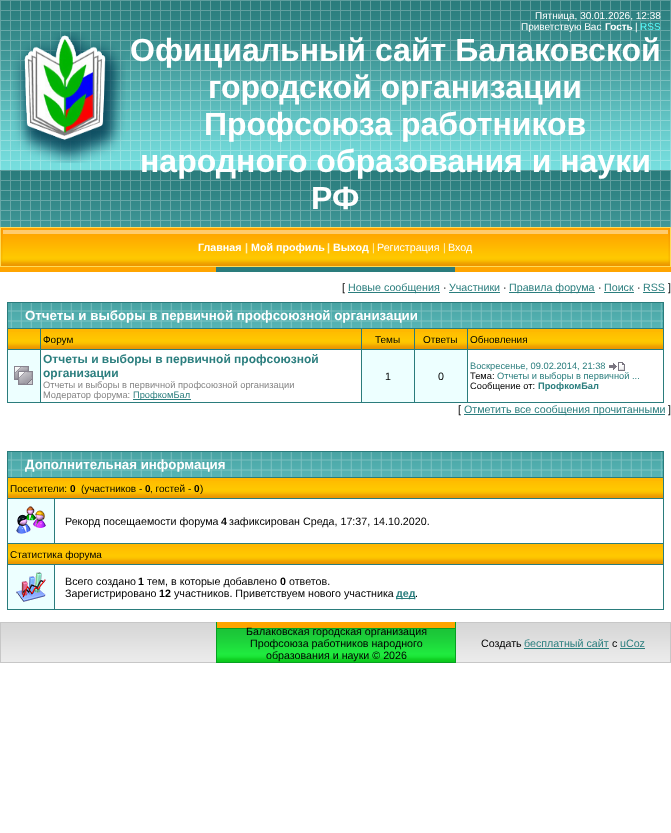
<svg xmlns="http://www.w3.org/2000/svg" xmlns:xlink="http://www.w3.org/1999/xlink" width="671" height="833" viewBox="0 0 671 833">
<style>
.cls-1{font:10px Liberation Sans;fill:#ffffff}
.cls-2{font:bold 10px Liberation Sans;fill:#ffffff}
.cls-3{font:10px Liberation Sans;fill:#57ffff}
.cls-4{font:bold 32px Liberation Sans;fill:#ffffff}
.cls-5{font:bold 10.7px Liberation Sans;fill:#ffffff}
.cls-6{font:bold 10.7px Liberation Sans;fill:#fff2b6}
.cls-7{font:10.7px Liberation Sans;fill:#fff2b6}
.cls-8{font:10.7px Liberation Sans;fill:#ffffff}
.cls-9{font:10.7px Liberation Sans;fill:#000000}
.cls-10{font:10.7px Liberation Sans;fill:#2b7e7e}
.cls-11{font:bold 13.3px Liberation Sans;fill:#ffffff}
.cls-12{font:10px Liberation Sans;fill:#000000}
.cls-13{font:bold 12px Liberation Sans;fill:#2b7e7e}
.cls-14{font:9.3px Liberation Sans;fill:#858585}
.cls-15{font:9.3px Liberation Sans;fill:#2b7e7e}
.cls-16{font:9.3px Liberation Sans;fill:#000000}
.cls-17{font:bold 9.3px Liberation Sans;fill:#2b7e7e}
.cls-18{font:bold 10px Liberation Sans;fill:#000000}
.cls-19{font:bold 10.7px Liberation Sans;fill:#000000}
.cls-20{font:bold 10.7px Liberation Sans;fill:#2b7e7e}
</style>
<rect width="100%" height="100%" fill="#ffffff"/>
<image xlink:href="image0.png" x="0" y="0" width="671" height="227"/>
<image xlink:href="image1.png" x="13" y="32" width="113" height="131"/>
<image xlink:href="image2.png" x="1" y="228" width="669" height="38"/>
<rect fill="none" stroke="#ffdc58" x="0.5" y="227.5" width="670" height="39"/>
<image xlink:href="image3.png" x="1" y="228" width="2" height="35"/>
<image xlink:href="image4.png" x="668" y="228" width="2" height="35"/>
<rect fill="#ffa500" x="0" y="267" width="216" height="5"/>
<rect fill="#2a7c7c" x="216" y="267" width="239" height="5"/>
<rect fill="#ffa500" x="455" y="267" width="216" height="5"/>
<rect fill="#2b7e7e" x="348" y="292" width="92" height="1"/>
<rect fill="#2b7e7e" x="449" y="292" width="51" height="1"/>
<rect fill="#2b7e7e" x="509" y="292" width="86" height="1"/>
<rect fill="#2b7e7e" x="604" y="292" width="30" height="1"/>
<rect fill="#2b7e7e" x="643" y="292" width="22" height="1"/>
<rect fill="#2a7c7c" x="7" y="302" width="657" height="101"/>
<image xlink:href="image5.png" x="8" y="303" width="655" height="25"/>
<rect fill="#ffb800" x="8" y="329" width="32" height="3"/>
<image xlink:href="image6.png" x="8" y="332" width="32" height="17"/>
<rect fill="#ffb800" x="41" y="329" width="320" height="3"/>
<image xlink:href="image7.png" x="41" y="332" width="320" height="17"/>
<rect fill="#ffb800" x="362" y="329" width="52" height="3"/>
<image xlink:href="image8.png" x="362" y="332" width="52" height="17"/>
<rect fill="#ffb800" x="415" y="329" width="52" height="3"/>
<image xlink:href="image8.png" x="415" y="332" width="52" height="17"/>
<rect fill="#ffb800" x="468" y="329" width="195" height="3"/>
<image xlink:href="image9.png" x="468" y="332" width="195" height="17"/>
<rect fill="#edffff" x="8" y="350" width="32" height="52"/>
<image xlink:href="image10.png" x="14" y="366" width="19" height="19"/>
<rect fill="#ffffff" x="41" y="350" width="320" height="52"/>
<rect fill="#2b7e7e" x="133" y="399" width="58" height="1"/>
<rect fill="#edffff" x="362" y="350" width="52" height="52"/>
<rect fill="#edffff" x="415" y="350" width="52" height="52"/>
<rect fill="#ffffff" x="468" y="350" width="195" height="52"/>
<image xlink:href="image11.png" x="609" y="362" width="16" height="9"/>
<rect fill="#2b7e7e" x="464" y="414" width="201" height="1"/>
<rect fill="#2a7c7c" x="7" y="451" width="657" height="159"/>
<image xlink:href="image5.png" x="8" y="452" width="655" height="25"/>
<rect fill="#ffb800" x="8" y="478" width="655" height="3"/>
<image xlink:href="image12.png" x="8" y="481" width="655" height="17"/>
<rect fill="#edffff" x="8" y="499" width="46" height="44"/>
<image xlink:href="image13.png" x="16" y="506" width="30" height="28"/>
<rect fill="#ffffff" x="55" y="499" width="608" height="44"/>
<rect fill="#ffb800" x="8" y="544" width="655" height="3"/>
<image xlink:href="image12.png" x="8" y="547" width="655" height="17"/>
<rect fill="#edffff" x="8" y="565" width="46" height="44"/>
<image xlink:href="image14.png" x="16" y="572" width="30" height="30"/>
<rect fill="#ffffff" x="55" y="565" width="608" height="44"/>
<rect fill="#2b7e7e" x="396" y="598" width="19" height="1"/>
<image xlink:href="image15.png" x="1" y="623" width="215" height="39"/>
<rect fill="#c7c7c7" x="0" y="622" width="216" height="1"/>
<rect fill="#c7c7c7" x="0" y="662" width="216" height="1"/>
<rect fill="#c7c7c7" x="0" y="622" width="1" height="41"/>
<image xlink:href="image16.png" x="217" y="622" width="238" height="41"/>
<rect fill="#06a121" x="455" y="622" width="1" height="41"/>
<rect fill="#06a121" x="216" y="622" width="1" height="41"/>
<image xlink:href="image17.png" x="456" y="623" width="214" height="39"/>
<rect fill="#c7c7c7" x="456" y="622" width="215" height="1"/>
<rect fill="#c7c7c7" x="670" y="622" width="1" height="41"/>
<rect fill="#c7c7c7" x="456" y="662" width="215" height="1"/>
<rect fill="#2b7e7e" x="524" y="648" width="85" height="1"/>
<rect fill="#2b7e7e" x="620" y="648" width="25" height="1"/>
<text class="cls-1" x="535" y="19">Пятница, 30.01.2026, 12:38</text>
<text class="cls-1" x="521" y="30">Приветствую Вас</text>
<text class="cls-2" x="605" y="30">Гость</text>
<text class="cls-1" x="635" y="30">|</text>
<text class="cls-3" x="640" y="30">RSS</text>
<text class="cls-4" x="130" y="61">Официальный сайт Балаковской</text>
<text class="cls-4" x="208" y="98">городской организации</text>
<text class="cls-4" x="204" y="135">Профсоюза работников</text>
<text class="cls-4" x="140" y="172">народного образования и науки</text>
<text class="cls-4" x="311" y="209">РФ</text>
<text class="cls-5" x="198" y="251">Главная</text>
<text class="cls-6" x="245" y="251">|</text>
<text class="cls-5" x="251" y="251">Мой профиль</text>
<text class="cls-6" x="327" y="251">|</text>
<text class="cls-5" x="333" y="251">Выход</text>
<text class="cls-7" x="372" y="251">|</text>
<text class="cls-8" x="377" y="251">Регистрация</text>
<text class="cls-7" x="443" y="251">|</text>
<text class="cls-8" x="448" y="251">Вход</text>
<text class="cls-9" x="342" y="291">[</text>
<text class="cls-10" x="348" y="291">Новые сообщения</text>
<text class="cls-9" x="443" y="291">·</text>
<text class="cls-10" x="449" y="291">Участники</text>
<text class="cls-9" x="503" y="291">·</text>
<text class="cls-10" x="509" y="291">Правила форума</text>
<text class="cls-9" x="598" y="291">·</text>
<text class="cls-10" x="604" y="291">Поиск</text>
<text class="cls-9" x="637" y="291">·</text>
<text class="cls-10" x="643" y="291">RSS</text>
<text class="cls-9" x="668" y="291">]</text>
<text class="cls-11" x="25" y="320">Отчеты и выборы в первичной профсоюзной организации</text>
<text class="cls-12" x="43" y="343">Форум</text>
<text class="cls-12" x="375" y="343">Темы</text>
<text class="cls-12" x="423" y="343">Ответы</text>
<text class="cls-12" x="470" y="343">Обновления</text>
<text class="cls-13"><tspan x="43" y="363">Отчеты и выборы в первичной профсоюзной</tspan><tspan x="43" y="377">организации</tspan></text>
<text class="cls-14"><tspan x="43" y="388">Отчеты и выборы в первичной профсоюзной организации</tspan><tspan x="43" y="398">Модератор форума:</tspan></text>
<text class="cls-15" x="133" y="398">ПрофкомБал</text>
<text class="cls-9" x="385" y="380">1</text>
<text class="cls-9" x="438" y="380">0</text>
<text class="cls-15" x="470" y="369">Воскресенье, 09.02.2014, 21:38</text>
<text class="cls-16" x="470" y="379">Тема:</text>
<text class="cls-15" x="497" y="379">Отчеты и выборы в первичной ...</text>
<text class="cls-16" x="470" y="389">Сообщение от:</text>
<text class="cls-17" x="538" y="389">ПрофкомБал</text>
<text class="cls-9" x="458" y="413">[</text>
<text class="cls-10" x="464" y="413">Отметить все сообщения прочитанными</text>
<text class="cls-9" x="668" y="413">]</text>
<text class="cls-11" x="25" y="469">Дополнительная информация</text>
<text class="cls-12" x="10" y="492">Посетители:</text>
<text class="cls-18" x="70" y="492">0</text>
<text class="cls-12" x="81" y="492">(участников -</text>
<text class="cls-18" x="145" y="492">0</text>
<text class="cls-12" x="150" y="492">, гостей -</text>
<text class="cls-18" x="194" y="492">0</text>
<text class="cls-12" x="200" y="492">)</text>
<text class="cls-9" x="65" y="525">Рекорд посещаемости форума</text>
<text class="cls-19" x="221" y="525">4</text>
<text class="cls-9" x="229" y="525">зафиксирован Среда, 17:37, 14.10.2020.</text>
<text class="cls-12" x="10" y="558">Статистика форума</text>
<text class="cls-9" x="65" y="585">Всего создано</text>
<text class="cls-19" x="138" y="585">1</text>
<text class="cls-9" x="147" y="585">тем, в которые добавлено</text>
<text class="cls-19" x="280" y="585">0</text>
<text class="cls-9" x="289" y="585">ответов.</text>
<text class="cls-9" x="65" y="597">Зарегистрировано</text>
<text class="cls-19" x="159" y="597">12</text>
<text class="cls-9" x="174" y="597">участников. Приветствуем нового участника</text>
<text class="cls-20" x="396" y="597">дед</text>
<text class="cls-9" x="415" y="597">.</text>
<text class="cls-9" x="246" y="635">Балаковская городская организация</text>
<text class="cls-9" x="250" y="647">Профсоюза работников народного</text>
<text class="cls-9" x="266" y="659">образования и науки © 2026</text>
<text class="cls-9" x="481" y="647">Создать</text>
<text class="cls-10" x="524" y="647">бесплатный сайт</text>
<text class="cls-9" x="612" y="647">с</text>
<text class="cls-10" x="620" y="647">uCoz</text>
</svg>
